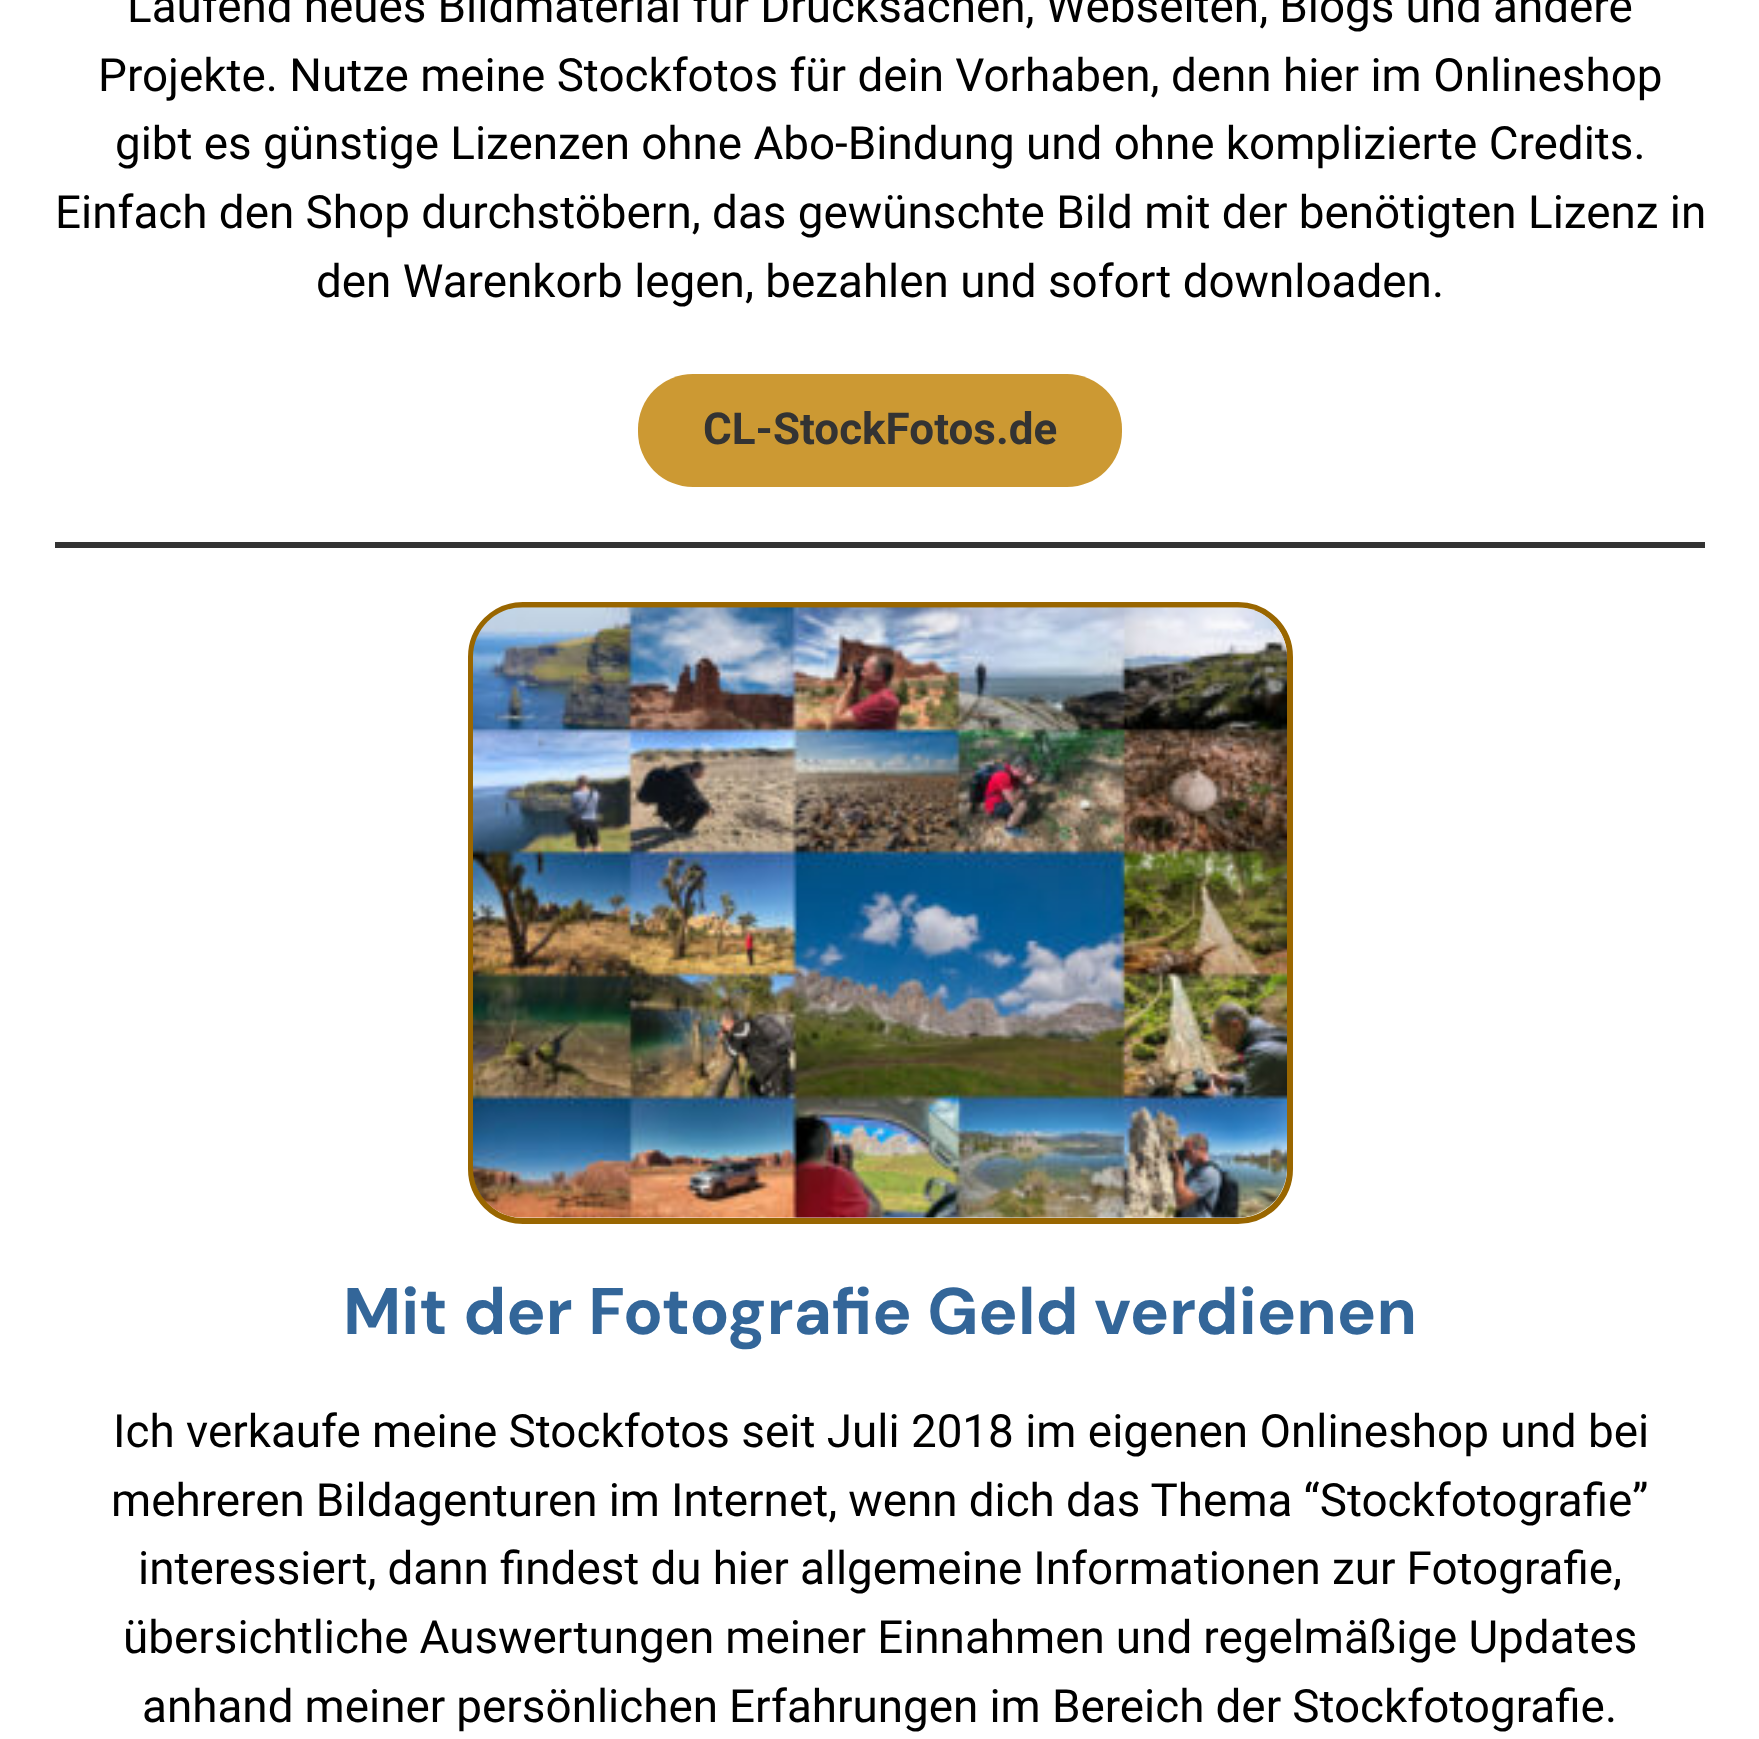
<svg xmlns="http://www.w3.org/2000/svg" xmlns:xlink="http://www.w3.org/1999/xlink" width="1759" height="1739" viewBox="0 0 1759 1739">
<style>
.cls-1{font:45.8px Roboto;fill:#000000}
.cls-2{font:bold 44px Roboto;fill:#333333}
.cls-3{font:bold 65.75px DM Sans;fill:#336699}
</style>
<rect width="100%" height="100%" fill="#ffffff"/>
<rect fill="#cc9933" x="638" y="374" width="484" height="113" rx="55"/>
<rect fill="#333333" x="55" y="542" width="1650" height="6"/>
<rect fill="none" stroke="#996600" stroke-width="6" x="471" y="605" width="819" height="616" rx="52"/>
<image xlink:href="image0.png" x="473" y="607" width="814" height="611"/>
<text class="cls-1" x="127" y="22" word-spacing="-0.25">Laufend neues Bildmaterial für Drucksachen, Webseiten, Blogs und andere</text>
<text class="cls-1" x="98" y="91">Projekte. Nutze meine Stockfotos für dein Vorhaben, denn hier im Onlineshop</text>
<text class="cls-1" x="115" y="159" word-spacing="-0.1">gibt es günstige Lizenzen ohne Abo-Bindung und ohne komplizierte Credits.</text>
<text class="cls-1" x="55" y="228">Einfach den Shop durchstöbern, das gewünschte Bild mit der benötigten Lizenz in</text>
<text class="cls-1" x="316" y="297">den Warenkorb legen, bezahlen und sofort downloaden.</text>
<text class="cls-2" x="703" y="444">CL-StockFotos.de</text>
<text class="cls-3" x="343" y="1334">Mit der Fotografie Geld verdienen</text>
<text class="cls-1" x="113" y="1447">Ich verkaufe meine Stockfotos seit Juli 2018 im eigenen Onlineshop und bei</text>
<text class="cls-1" x="111" y="1516" word-spacing="-0.25">mehreren Bildagenturen im Internet, wenn dich das Thema “Stockfotografie”</text>
<text class="cls-1" x="138" y="1584" word-spacing="-0.25">interessiert, dann findest du hier allgemeine Informationen zur Fotografie,</text>
<text class="cls-1" x="123" y="1653" word-spacing="-0.25">übersichtliche Auswertungen meiner Einnahmen und regelmäßige Updates</text>
<text class="cls-1" x="142" y="1722" word-spacing="-0.25">anhand meiner persönlichen Erfahrungen im Bereich der Stockfotografie.</text>
</svg>
